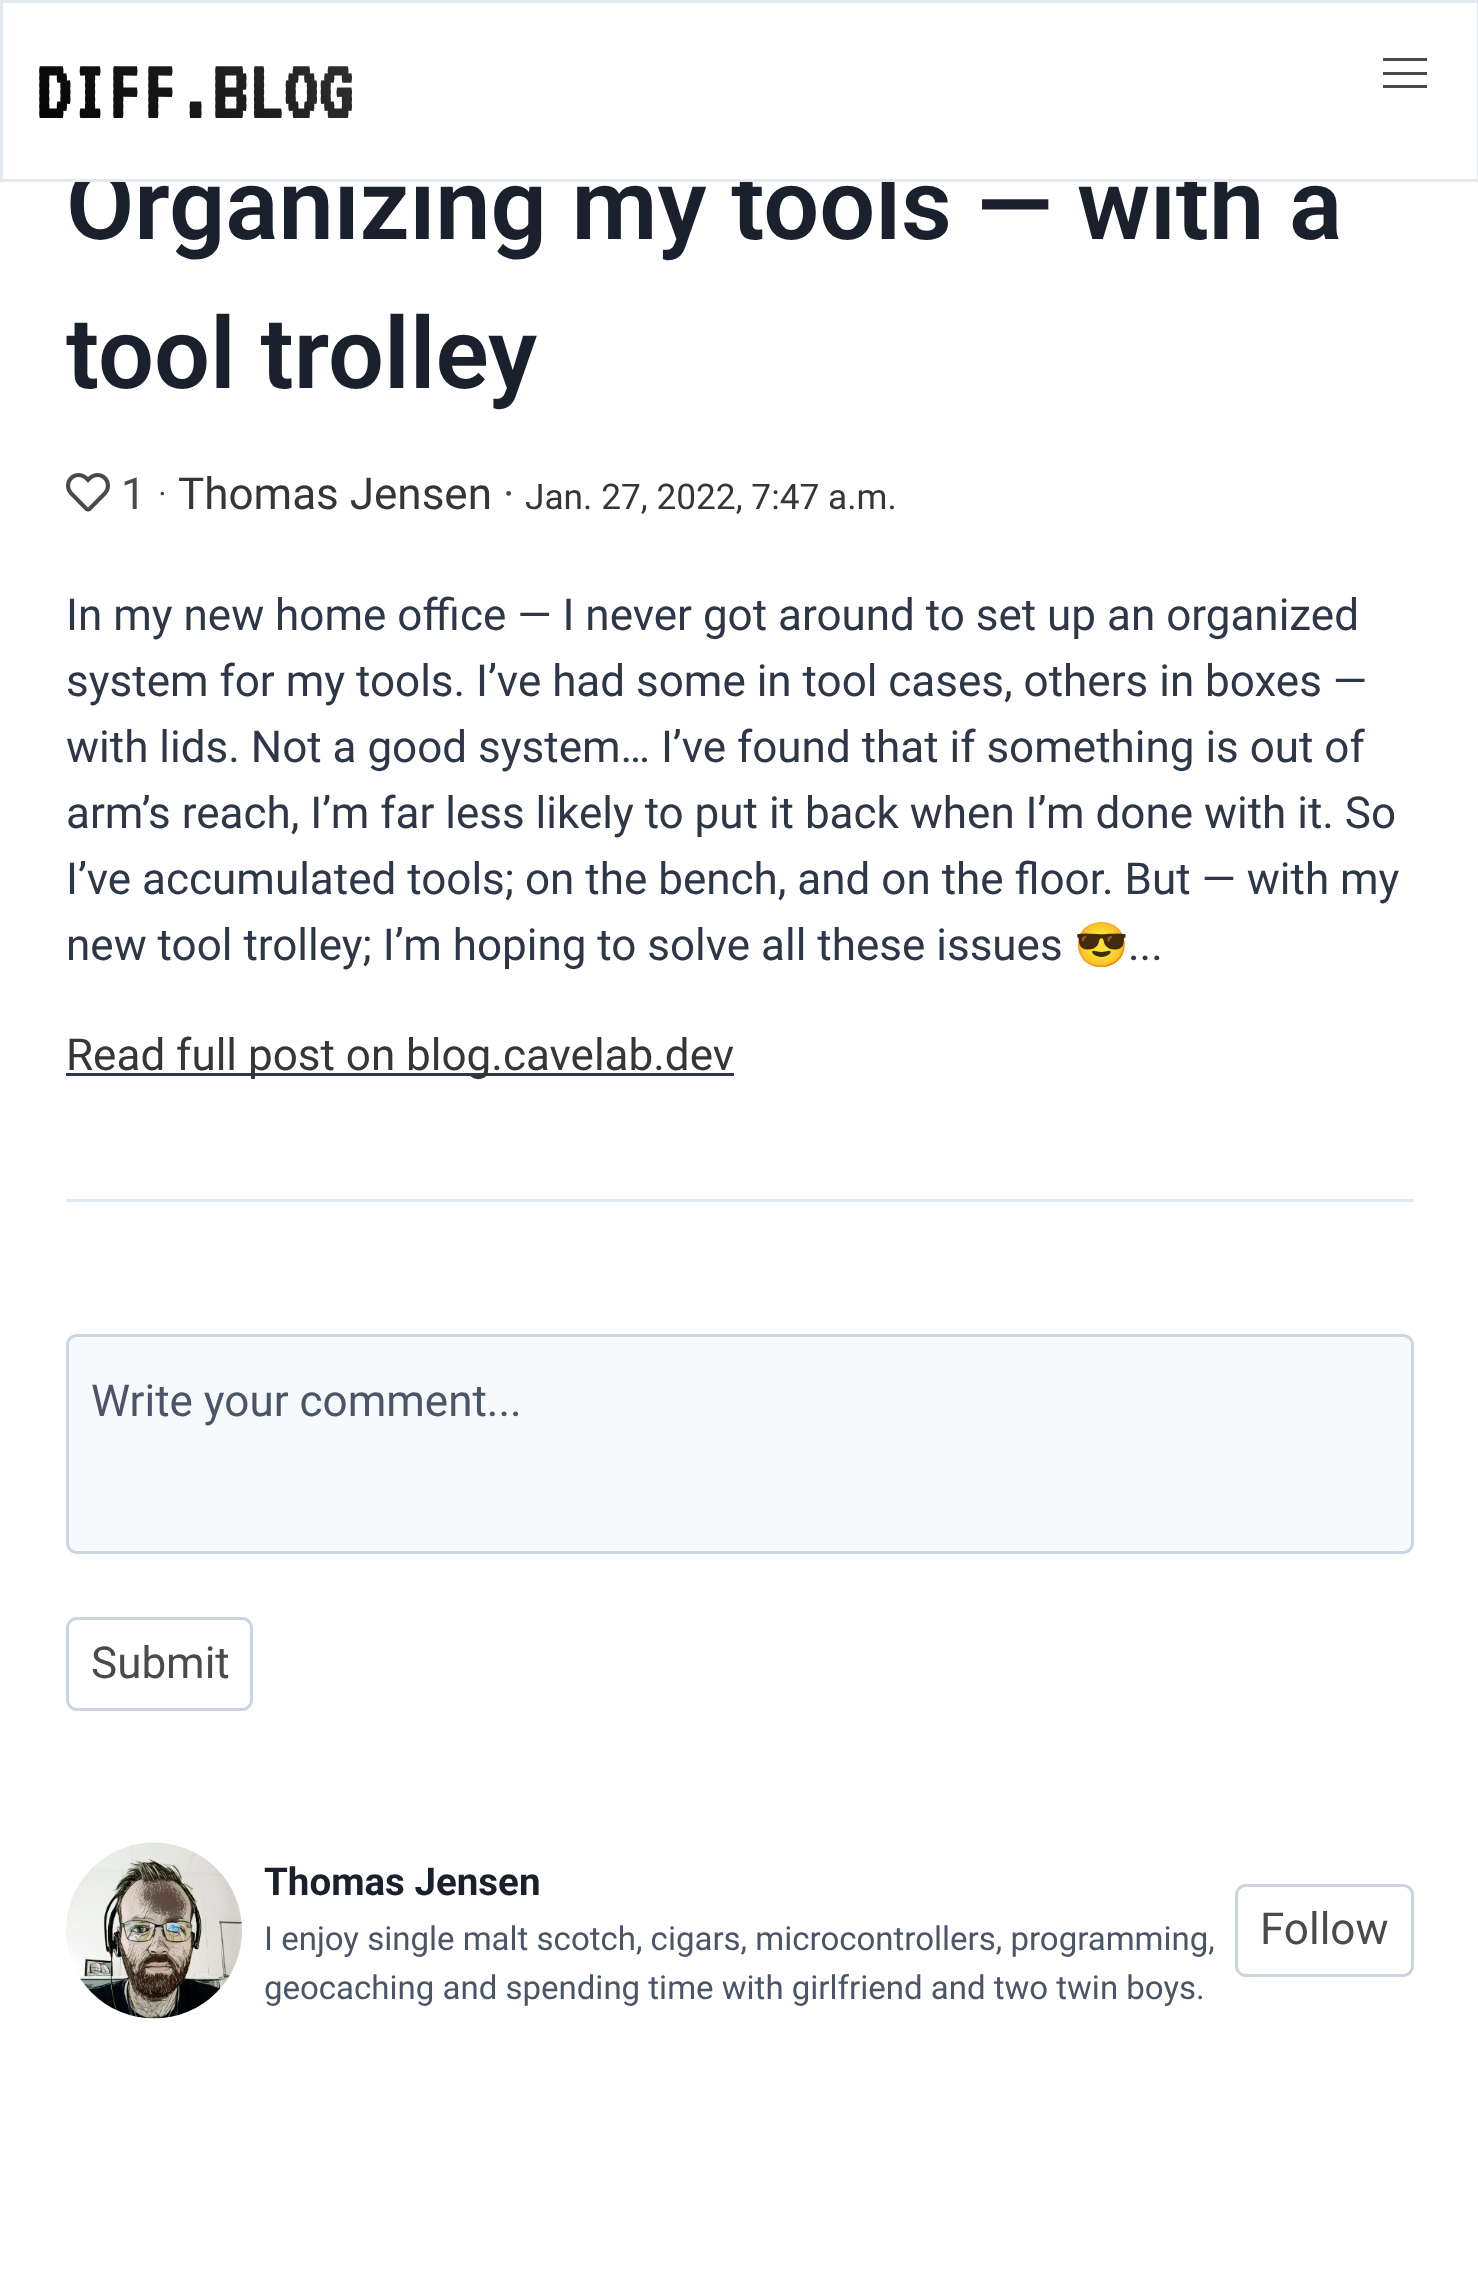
<svg xmlns="http://www.w3.org/2000/svg" xmlns:xlink="http://www.w3.org/1999/xlink" width="1478" height="2281" viewBox="0 0 1478 2281">
<style>
.cls-1{font:600 99px Roboto;fill:#1a202c}
.cls-2{font:bold 88px 'VT323';fill:url(#g1)}
.cls-3{font:44px Roboto;fill:#4a4a4a}
.cls-4{font:300 44px Roboto;fill:#4a4a4a}
.cls-5{font:44px Roboto;fill:#363636}
.cls-6{font:35.25px Roboto;fill:#363636}
.cls-7{font:44px Roboto;fill:#2d3748}
.cls-8{font:44px Noto Color Emoji;fill:#2d3748}
.cls-9{font:44px Roboto;fill:#4a5568}
.cls-10{font:bold 38.5px Roboto;fill:#1a202c}
.cls-11{font:33px Roboto;fill:#4a5568}
</style>
<defs>
<linearGradient id="g1" gradientUnits="userSpaceOnUse" x1="82" y1="203" x2="306" y2="-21"><stop offset="0" stop-color="#000000"/><stop offset="1" stop-color="#333333"/></linearGradient>
</defs>
<rect width="100%" height="100%" fill="#ffffff"/>
<image xlink:href="image0.png" x="66" y="473" width="44" height="39"/>
<rect fill="#e2e8f0" x="66" y="1199" width="1348" height="3"/>
<rect fill="#2d3748" x="66" y="1073" width="668" height="3"/>
<rect fill="#f7fafc" stroke="#cbd5e0" stroke-width="3" x="67.5" y="1335.5" width="1345" height="217" rx="9.5"/>
<rect fill="none" stroke="#cbd5e0" stroke-width="3" x="67.5" y="1618.5" width="184" height="91" rx="9.5"/>
<image xlink:href="image1.png" x="66" y="1842" width="176" height="177"/>
<rect fill="none" stroke="#cbd5e0" stroke-width="3" x="1236.5" y="1885.5" width="176" height="90" rx="9.5"/>
<text class="cls-1" x="66" y="239">Organizing my tools — with a</text>
<rect fill="#ffffff" x="77" y="164" width="1151" height="15"/>
<rect fill="none" stroke="#e2e8f0" stroke-width="3" x="1.5" y="1.5" width="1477" height="179"/>
<rect fill="#4a4a4a" x="1383" y="85" width="44" height="3"/>
<rect fill="#4a4a4a" x="1383" y="72" width="44" height="3"/>
<rect fill="#4a4a4a" x="1383" y="58" width="44" height="3"/>
<text class="cls-2" x="36" y="118">DIFF.BLOG</text>
<text class="cls-1" x="66" y="388">tool trolley</text>
<text class="cls-3" x="121" y="509">1</text>
<text class="cls-4" x="157" y="509">·</text>
<text class="cls-5" x="178" y="509">Thomas Jensen</text>
<text class="cls-3" x="503" y="509">·</text>
<text class="cls-6" x="525" y="509">Jan. 27, 2022, 7:47 a.m.</text>
<text class="cls-7"><tspan x="66" y="630">In my new home office — I never got around to set up an organized</tspan><tspan x="66" y="696">system for my tools. I’ve had some in tool cases, others in boxes —</tspan><tspan x="66" y="762">with lids. Not a good system… I’ve found that if something is out of</tspan><tspan x="66" y="828">arm’s reach, I’m far less likely to put it back when I’m done with it. So</tspan><tspan x="66" y="894">I’ve accumulated tools; on the bench, and on the floor. But — with my</tspan><tspan x="66" y="960">new tool trolley; I’m hoping to solve all these issues</tspan></text>
<text class="cls-8" x="1074" y="960">😎</text>
<text class="cls-7" x="1128" y="960">...</text>
<text class="cls-5" x="66" y="1070">Read full post on blog.cavelab.dev</text>
<text class="cls-9" x="91" y="1416">Write your comment...</text>
<text class="cls-3" x="91" y="1678">Submit</text>
<text class="cls-10" x="264" y="1895">Thomas Jensen</text>
<text class="cls-11"><tspan x="264" y="1950">I enjoy single malt scotch, cigars, microcontrollers, programming,</tspan><tspan x="264" y="1999">geocaching and spending time with girlfriend and two twin boys.</tspan></text>
<text class="cls-3" x="1260" y="1944">Follow</text>
</svg>
